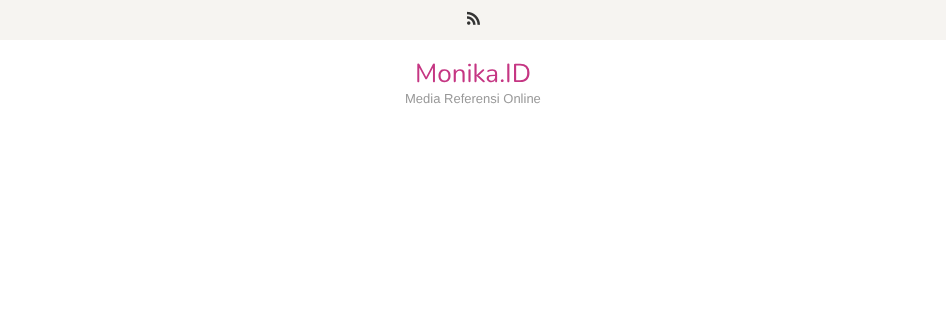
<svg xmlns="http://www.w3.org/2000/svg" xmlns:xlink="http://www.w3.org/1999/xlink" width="946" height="317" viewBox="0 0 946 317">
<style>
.cls-1{font:26px Nunito;fill:#c53683}
.cls-2{font:13px Liberation Sans;fill:#999999}
</style>
<rect width="100%" height="100%" fill="#ffffff"/>
<rect fill="#f6f4f1" x="0" y="0" width="946" height="40"/>
<image xlink:href="image0.png" x="467" y="11" width="13" height="14"/>
<text class="cls-1" x="415" y="82">Monika.ID</text>
<text class="cls-2" x="405" y="103">Media Referensi Online</text>
</svg>
